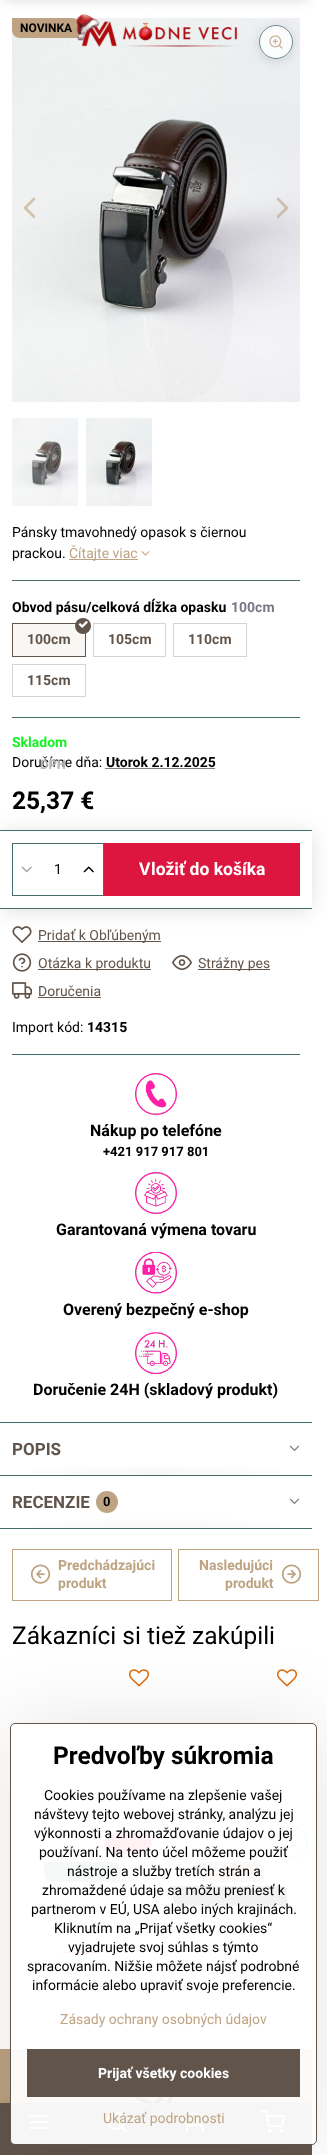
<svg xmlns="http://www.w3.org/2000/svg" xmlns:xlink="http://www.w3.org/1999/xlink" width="327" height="2155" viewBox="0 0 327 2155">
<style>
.cls-1{font:bold 12px Roboto;fill:#000000}
.cls-2{font:14px Roboto;fill:#000000}
.cls-3{font:14px Roboto;fill:#bea483}
.cls-4{font:bold 14px Roboto;fill:#000000}
.cls-5{font:bold 14px Roboto;fill:#777788}
.cls-6{font:bold 14px Roboto;fill:#61544b}
.cls-7{font:bold 14px Roboto;fill:#13f222}
.cls-8{font:bold 13px Roboto;fill:#bababa}
.cls-9{font:bold 24.5px Roboto;fill:#000000}
.cls-10{font:bold 17.5px Noto Sans;fill:#ffffff}
.cls-11{font:bold 17.5px Roboto;fill:#ffffff}
.cls-12{font:14px Roboto;fill:#61544b}
.cls-13{font:bold 16px Roboto;fill:#000000}
.cls-14{font:bold 13px Roboto;fill:#000000}
.cls-15{font:bold 17px Roboto;fill:#61544b}
.cls-16{font:bold 14px Roboto;fill:#bea483}
.cls-17{font:24.5px Roboto;fill:#000000}
.cls-18{font:bold 14px Roboto;fill:#ffffff}
</style>
<defs>
<clipPath id="clip1"><path d="M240 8H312V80H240ZM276 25C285.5 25 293 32.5 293 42C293 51.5 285.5 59 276 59C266.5 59 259 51.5 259 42C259 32.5 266.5 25 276 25Z" clip-rule="evenodd"/></clipPath>
<clipPath id="clip2"><path d="M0 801H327V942H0ZM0 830H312V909H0Z" clip-rule="evenodd"/></clipPath>
<radialGradient id="g1" gradientUnits="userSpaceOnUse" cx="0" cy="0" r="1" gradientTransform="matrix(243 0 0 17 156 1475)"><stop offset="0" stop-color="#f7f6f6"/><stop offset="0.7" stop-color="#ffffff"/></radialGradient>
<radialGradient id="g2" gradientUnits="userSpaceOnUse" cx="0" cy="0" r="1" gradientTransform="matrix(243 0 0 17 156 1528)"><stop offset="0" stop-color="#f7f6f6"/><stop offset="0.7" stop-color="#ffffff"/></radialGradient>
<radialGradient id="g3" gradientUnits="userSpaceOnUse" cx="0" cy="0" r="1" gradientTransform="matrix(265 0 0 23 156 2049)"><stop offset="0" stop-color="#b8a07f"/><stop offset="0.7" stop-color="#bba281"/></radialGradient>
<clipPath id="clip3"><path d="M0 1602H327V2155H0ZM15 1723H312C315 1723 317 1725 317 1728V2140C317 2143 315 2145 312 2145H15C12 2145 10 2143 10 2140V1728C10 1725 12 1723 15 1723Z" clip-rule="evenodd"/></clipPath>
</defs>
<rect width="100%" height="100%" fill="#ffffff"/>
<image xlink:href="image2.png" x="12" y="18" width="288" height="384"/>
<path fill="#bea282" d="M12 18H72C76.5 18 80 21.5 80 26V38H20C15.5 38 12 34.5 12 30Z"/>
<rect fill="#000014" fill-opacity="0.15" filter="blur(6px)" x="4" y="-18" width="304" height="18"/>
<image xlink:href="image0.png" x="76" y="12" width="162" height="35"/>
<g clip-path="url(#clip1)">
<rect fill="#000014" fill-opacity="0.12" filter="blur(6px)" x="259" y="27" width="34" height="34" rx="17"/>
</g>
<circle fill="#ffffff" fill-opacity="0.8" cx="276" cy="42" r="17"/>
<circle fill="none" stroke="#446e6b" stroke-opacity="0.8" cx="276" cy="42" r="16.5"/>
<image xlink:href="image1.png" x="269" y="35" width="14" height="14"/>
<image xlink:href="image3.png" x="23" y="197" width="13" height="21"/>
<image xlink:href="image4.png" x="276" y="197" width="13" height="21"/>
<image xlink:href="image5.png" x="12" y="418" width="66" height="88"/>
<image xlink:href="image6.png" x="86" y="418" width="66" height="88"/>
<rect fill="#bea483" x="69" y="559" width="69" height="1"/>
<image xlink:href="image7.png" x="141" y="551" width="9" height="5"/>
<rect fill="#446e6b" x="12" y="580" width="288" height="1"/>
<rect fill="#f9f7f4" stroke="#61544b" x="12.5" y="623.5" width="73" height="33"/>
<circle fill="#61544b" cx="83" cy="626" r="8"/>
<image xlink:href="image8.png" x="78" y="621" width="10" height="7"/>
<rect fill="none" stroke="#d2d5d8" x="93.5" y="623.5" width="72" height="33"/>
<rect fill="none" stroke="#d2d5d8" x="173.5" y="623.5" width="73" height="33"/>
<rect fill="none" stroke="#d2d5d8" x="12.5" y="664.5" width="73" height="32"/>
<rect fill="#446e6b" x="12" y="717" width="288" height="1"/>
<path fill="none" stroke="#000000" stroke-dasharray="1 1" d="M105.5 768.5H147.5"/>
<path fill="none" stroke="#000000" stroke-dasharray="1 1" d="M147.5 768.5H215.5"/>
<image xlink:href="image11.png" x="12" y="926" width="20" height="17"/>
<rect fill="#61544b" x="38" y="941" width="123" height="1"/>
<g clip-path="url(#clip2)">
<rect fill="#000014" fill-opacity="0.15" filter="blur(10.5px)" x="2" y="834" width="308" height="75"/>
</g>
<rect fill="#446e6b" x="0" y="830" width="312" height="1"/>
<rect fill="#446e6b" x="0" y="908" width="312" height="1"/>
<rect fill="none" stroke="#446e6b" x="12.5" y="843.5" width="91" height="52"/>
<image xlink:href="image9.png" x="21" y="866" width="11" height="7"/>
<image xlink:href="image10.png" x="83" y="866" width="11" height="7"/>
<rect fill="#dc163e" x="104" y="843" width="196" height="53"/>
<image xlink:href="image12.png" x="12" y="953" width="20" height="19"/>
<rect fill="#61544b" x="38" y="969" width="113" height="1"/>
<image xlink:href="image13.png" x="172" y="955" width="20" height="15"/>
<rect fill="#61544b" x="198" y="969" width="72" height="1"/>
<image xlink:href="image14.png" x="12" y="982" width="20" height="17"/>
<rect fill="#61544b" x="38" y="997" width="63" height="1"/>
<rect fill="#446e6b" x="12" y="1054" width="288" height="1"/>
<image xlink:href="image15.png" x="135" y="1073" width="42" height="42"/>
<image xlink:href="image16.png" x="135" y="1172" width="42" height="42"/>
<image xlink:href="image17.png" x="135" y="1252" width="42" height="42"/>
<image xlink:href="image18.png" x="135" y="1332" width="42" height="42"/>
<rect fill="#446e6b" x="0" y="1528" width="312" height="1"/>
<rect fill="url(#g1)" x="33" y="1466" width="246" height="9"/>
<rect fill="#446e6b" x="0" y="1422" width="312" height="1"/>
<image xlink:href="image19.png" x="289" y="1445" width="11" height="7"/>
<rect fill="url(#g2)" x="33" y="1519" width="246" height="9"/>
<rect fill="#446e6b" x="0" y="1475" width="312" height="1"/>
<circle fill="#bea483" cx="107" cy="1502" r="11"/>
<image xlink:href="image19.png" x="289" y="1498" width="11" height="7"/>
<rect fill="none" stroke="#bea483" x="12.5" y="1549.5" width="159" height="51"/>
<image xlink:href="image20.png" x="30" y="1564" width="21" height="20"/>
<rect fill="none" stroke="#bea483" x="178.5" y="1549.5" width="140" height="51"/>
<image xlink:href="image21.png" x="281" y="1564" width="21" height="20"/>
<image xlink:href="image22.png" x="129" y="1669" width="20" height="18"/>
<rect fill="#de122b" x="104" y="1833" width="48" height="21" rx="10.5"/>
<path fill="#57916b" d="M44 1862H112C116.5 1862 120 1865.5 120 1870V1882H52C47.5 1882 44 1878.5 44 1874Z"/>
<rect fill="#de122b" x="62" y="1952" width="40" height="1"/>
<image xlink:href="image22.png" x="277" y="1669" width="20" height="18"/>
<path fill="#bea282" d="M196 1862H256C260.5 1862 264 1865.5 264 1870V1882H204C199.5 1882 196 1878.5 196 1874Z"/>
<path fill="#000000" d="M173 1886H279C283.5 1886 287 1889.5 287 1894V1906H181C176.5 1906 173 1902.5 173 1898Z"/>
<rect fill="#333343" fill-opacity="0.15" filter="blur(6px)" x="276" y="1828" width="32" height="32" rx="16"/>
<circle fill="#ffffff" stroke="#698b89" cx="292" cy="1842" r="15.5"/>
<image xlink:href="image23.png" x="289" y="1835" width="8" height="14"/>
<rect fill="#bba281" x="0" y="2065" width="312" height="38"/>
<rect fill="url(#g3)" x="0" y="2049" width="312" height="16"/>
<image xlink:href="image24.png" x="134" y="2097" width="40" height="6"/>
<rect fill="#25202a" fill-opacity="0.15" filter="blur(6px)" x="264" y="2069" width="32" height="32" rx="16"/>
<circle fill="#bda483" cx="280" cy="2083" r="16"/>
<rect fill="#000014" fill-opacity="0.15" filter="blur(6px)" x="4" y="2103" width="304" height="44"/>
<rect fill="#61544b" x="0" y="2103" width="312" height="52"/>
<image xlink:href="image25.png" x="29" y="2115" width="20" height="14"/>
<image xlink:href="image26.png" x="107" y="2112" width="20" height="20"/>
<image xlink:href="image27.png" x="186" y="2112" width="18" height="20"/>
<image xlink:href="image28.png" x="261" y="2110" width="24" height="23"/>
<g clip-path="url(#clip3)">
<rect fill="#000000" fill-opacity="0.1" filter="blur(40px)" x="10" y="1723" width="307" height="422" rx="5"/>
</g>
<rect fill="#ffffff" fill-opacity="0.95" stroke="#61544b" x="10.5" y="1723.5" width="306" height="421" rx="4.5"/>
<rect fill="#61544b" x="27" y="2049" width="273" height="48"/>
<text class="cls-1" x="20" y="32">NOVINKA</text>
<text class="cls-2"><tspan x="12" y="537">Pánsky tmavohnedý opasok s čiernou</tspan><tspan x="12" y="558">prackou.</tspan></text>
<text class="cls-3" x="69" y="558">Čítajte viac</text>
<text class="cls-4" x="12" y="612">Obvod pásu/celková dĺžka opasku</text>
<text class="cls-5" x="231" y="612">100cm</text>
<text class="cls-6" x="27" y="644">100cm</text>
<text class="cls-6" x="108" y="644">105cm</text>
<text class="cls-6" x="188" y="644">110cm</text>
<text class="cls-6" x="27" y="685">115cm</text>
<text class="cls-7" x="12" y="747">Skladom</text>
<text class="cls-2" x="12" y="767">Doručíme dňa:</text>
<text class="cls-4" x="106" y="767">Utorok 2.12.2025</text>
<text class="cls-8" x="40" y="769">DPH</text>
<text class="cls-9" x="12" y="809">25,37 €</text>
<text class="cls-2" x="54" y="874">1</text>
<text class="cls-10" x="139" y="875">V</text>
<text class="cls-11" x="151" y="875">ložiť do košíka</text>
<text class="cls-12" x="38" y="940">Pridať k Obľúbeným</text>
<text class="cls-12" x="38" y="968">Otázka k produktu</text>
<text class="cls-12" x="198" y="968">Strážny pes</text>
<text class="cls-12" x="38" y="996">Doručenia</text>
<text class="cls-2" x="12" y="1032">Import kód:</text>
<text class="cls-4" x="87" y="1032">14315</text>
<text class="cls-13" x="90" y="1136">Nákup po telefóne</text>
<text class="cls-14" x="103" y="1156">+421 917 917 801</text>
<text class="cls-13" x="56" y="1235">Garantovaná výmena tovaru</text>
<text class="cls-13" x="63" y="1315">Overený bezpečný e-shop</text>
<text class="cls-13" x="33" y="1395">Doručenie 24H (skladový produkt)</text>
<text class="cls-15" x="12" y="1455">POPIS</text>
<text class="cls-15" x="12" y="1508">RECENZIE</text>
<text class="cls-14" x="103" y="1506">0</text>
<text class="cls-16"><tspan x="58" y="1570">Predchádzajúci</tspan><tspan x="58" y="1588">produkt</tspan></text>
<text class="cls-16" x="199" y="1570">Nasledujúci</text>
<text class="cls-16" x="225" y="1588">produkt</text>
<text class="cls-17" x="12" y="1644">Zákazníci si tiež zakúpili</text>
<text class="cls-9" x="53" y="1764">Predvoľby súkromia</text>
<text class="cls-2" x="44" y="1800">Cookies používame na zlepšenie vašej</text>
<text class="cls-2"><tspan x="34" y="1819">návštevy tejto webovej stránky, analýzu jej</tspan><tspan x="34" y="1838">výkonnosti a zhromažďovanie údajov o jej</tspan></text>
<text class="cls-2" x="39" y="1857">používaní. Na tento účel môžeme použiť</text>
<text class="cls-2" x="67" y="1876">nástroje a služby tretích strán a</text>
<text class="cls-2" x="42" y="1895">zhromaždené údaje sa môžu preniesť k</text>
<text class="cls-2" x="31" y="1914">partnerom v EÚ, USA alebo iných krajinách.</text>
<text class="cls-2" x="54" y="1933">Kliknutím na „Prijať všetky cookies“</text>
<text class="cls-2" x="68" y="1952">vyjadrujete svoj súhlas s týmto</text>
<text class="cls-2" x="27" y="1971">spracovaním. Nižšie môžete nájsť podrobné</text>
<text class="cls-2" x="32" y="1990">informácie alebo upraviť svoje preferencie.</text>
<text class="cls-3" x="60" y="2024">Zásady ochrany osobných údajov</text>
<text class="cls-18" x="98" y="2078">Prijať všetky cookies</text>
<text class="cls-3" x="103" y="2123">Ukázať podrobnosti</text>
</svg>
